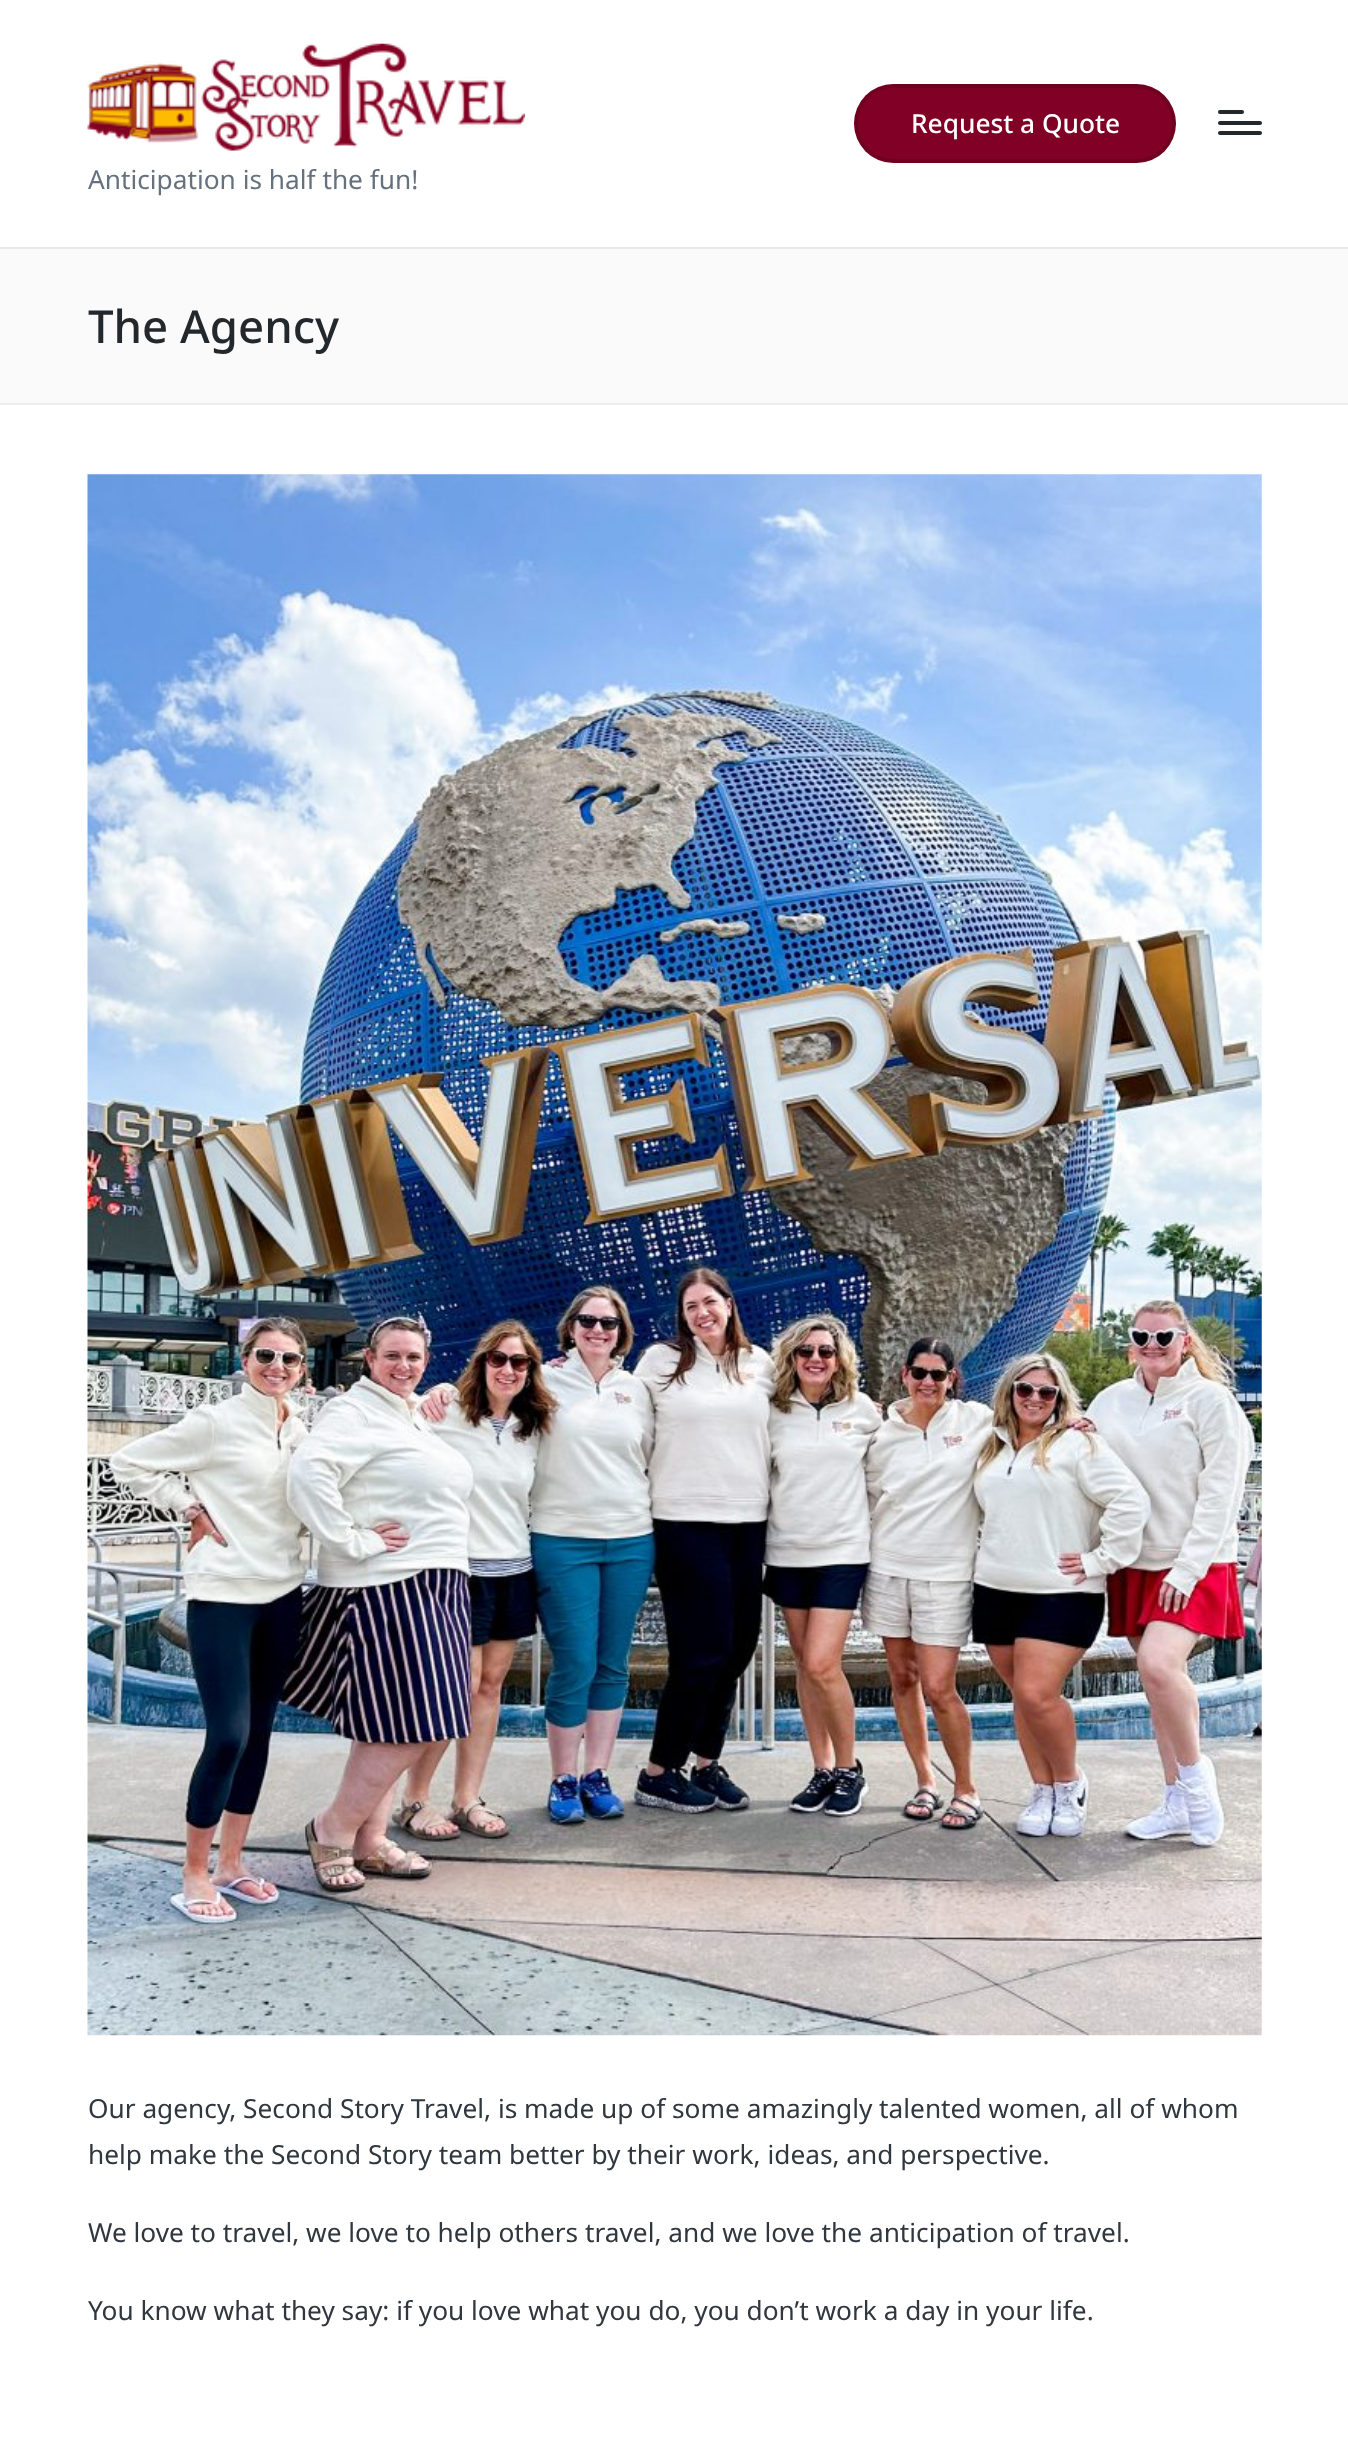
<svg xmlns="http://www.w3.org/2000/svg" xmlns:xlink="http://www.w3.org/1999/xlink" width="1348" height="2448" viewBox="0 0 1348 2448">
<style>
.cls-1{font:500 26.25px Noto Sans;fill:#ffffff}
.cls-2{font:26.25px Noto Sans;fill:#66717f}
.cls-3{font:500 45.5px Noto Sans;fill:#23282d}
.cls-4{font:26.25px Noto Sans;fill:#30373e}
</style>
<rect width="100%" height="100%" fill="#ffffff"/>
<rect fill="#f0f0f0" x="0" y="404" width="1348" height="1"/>
<rect fill="#e9e9e9" x="0" y="247" width="1348" height="2"/>
<rect fill="#800026" x="854" y="84" width="322" height="79" rx="39.5"/>
<rect fill="none" stroke="#000000" stroke-opacity="0.12" stroke-width="4" x="856" y="86" width="318" height="75" rx="37.5"/>
<rect fill="#23282d" x="1218" y="121" width="44" height="4" rx="2"/>
<rect fill="#23282d" x="1218" y="110" width="26" height="4" rx="2"/>
<rect fill="#23282d" x="1218" y="131" width="44" height="4" rx="2"/>
<image xlink:href="image0.png" x="87" y="43" width="438" height="108"/>
<rect fill="#fafafa" x="0" y="249" width="1348" height="154"/>
<rect fill="#ebebeb" x="0" y="403" width="1348" height="1"/>
<image xlink:href="image1.png" x="87" y="474" width="1175" height="1562"/>
<text class="cls-1" x="911" y="133">Request a Quote</text>
<text class="cls-2" x="88" y="189">Anticipation is half the fun!</text>
<text class="cls-3" x="88" y="343">The Agency</text>
<text class="cls-4"><tspan x="88" y="2118">Our agency, Second Story Travel, is made up of some amazingly talented women, all of whom</tspan><tspan x="88" y="2164">help make the Second Story team better by their work, ideas, and perspective.</tspan></text>
<text class="cls-4" x="88" y="2242">We love to travel, we love to help others travel, and we love the anticipation of travel.</text>
<text class="cls-4" x="88" y="2320">You know what they say: if you love what you do, you don’t work a day in your life.</text>
</svg>
